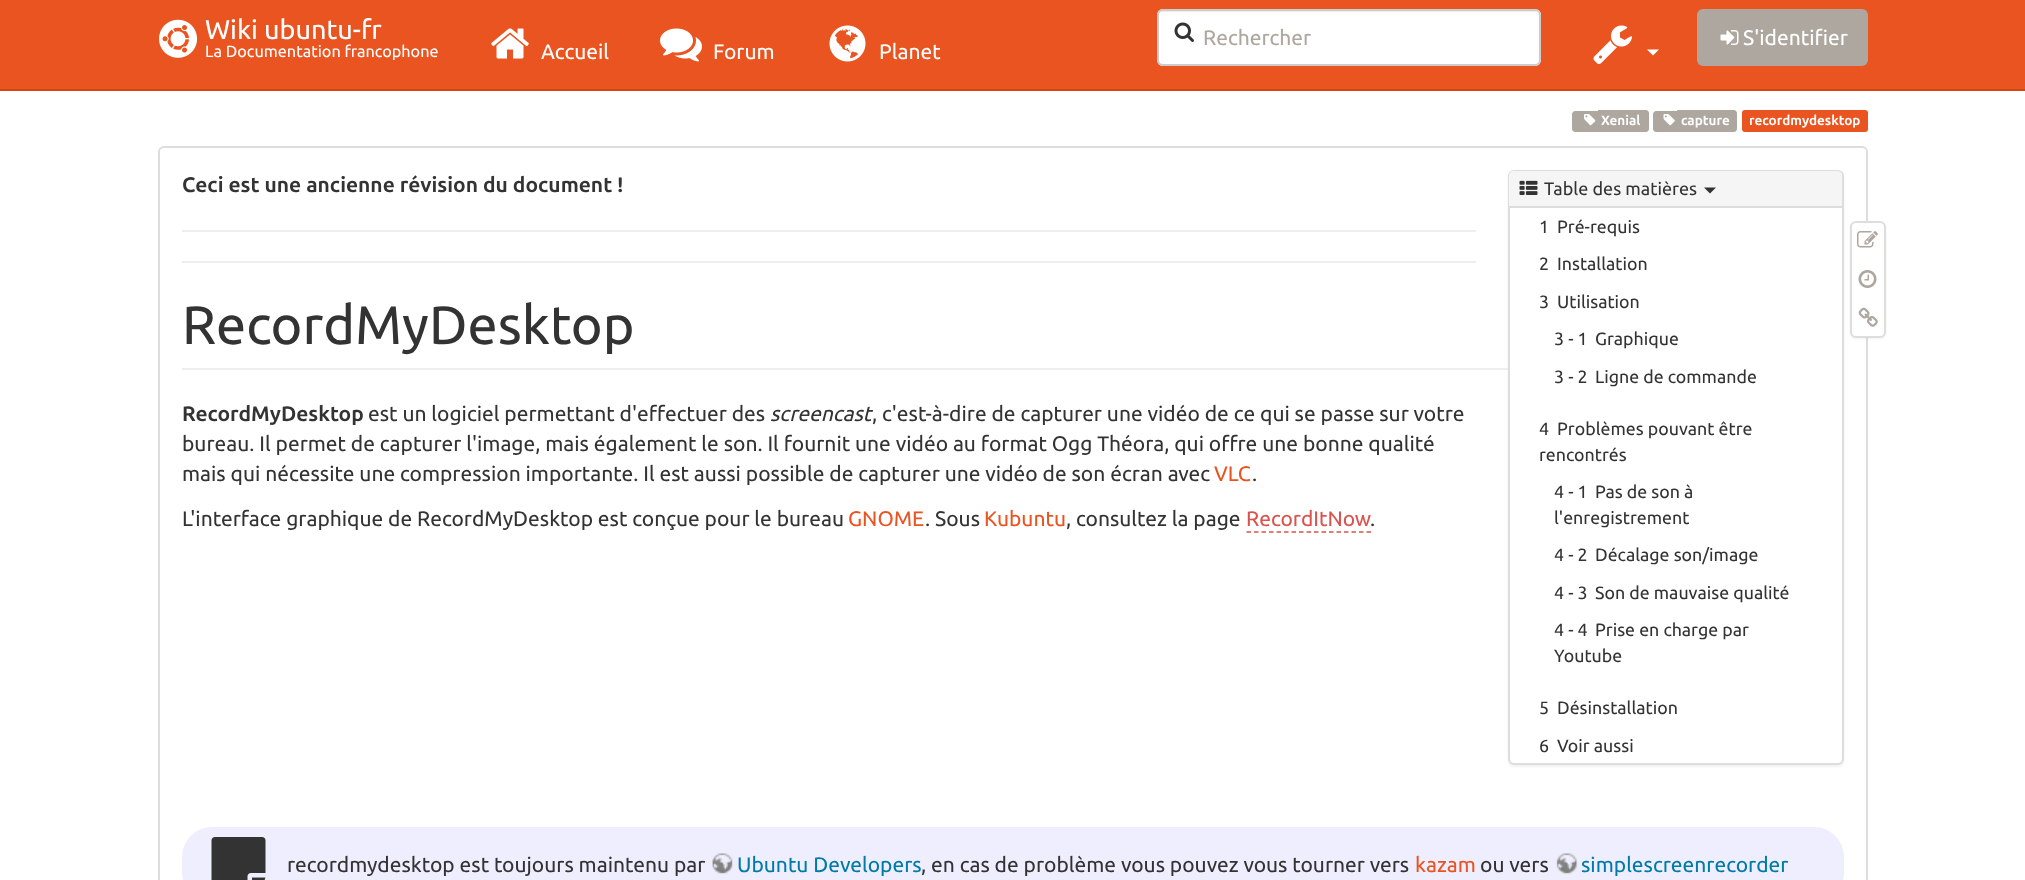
<svg xmlns="http://www.w3.org/2000/svg" xmlns:xlink="http://www.w3.org/1999/xlink" width="2025" height="880" viewBox="0 0 2025 880">
<style>
.cls-1{font:27px Ubuntu;fill:#ffffff}
.cls-2{font:16.25px Ubuntu;fill:#ffffff}
.cls-3{font:21px Ubuntu;fill:#aea79f}
.cls-4{font:21px Ubuntu;fill:#ffffff}
.cls-5{font:bold 13.5px Ubuntu;fill:#ffffff}
.cls-6{font:bold 21px Ubuntu;fill:#333333}
.cls-7{font:54px Ubuntu;fill:#333333}
.cls-8{font:21px Ubuntu;fill:#333333}
.cls-9{font:italic 21px Ubuntu;fill:#333333}
.cls-10{font:21px Ubuntu;fill:#e95420}
.cls-11{font:21px Ubuntu;fill:#d9534f}
.cls-12{font:21px Ubuntu;fill:#007aa6}
.cls-13{font:18px Ubuntu;fill:#333333}
.cls-14{font:17.8px Ubuntu;fill:#333333}
</style>
<rect width="100%" height="100%" fill="#ffffff"/>
<rect fill="#e95420" x="0" y="0" width="2025" height="89"/>
<rect fill="#d34615" x="0" y="89" width="2025" height="2"/>
<image xlink:href="image0.png" x="159" y="19" width="38" height="39"/>
<rect fill="#ffffff" x="1157" y="9" width="384" height="57" rx="6"/>
<path fill="#ececec" d="M1162 12H1534C1537 12 1539 14 1539 16C1539 13 1537 11 1534 11H1163C1160 11 1158 13 1158 16C1158 14 1160 12 1162 12Z"/>
<rect fill="none" stroke="#cccccc" stroke-width="2" x="1158" y="10" width="382" height="55" rx="5"/>
<image xlink:href="image1.png" x="1174" y="22" width="20" height="20"/>
<image xlink:href="image2.png" x="1593" y="25" width="39" height="39"/>
<path fill="#ffffff" d="M1647 49.5H1659L1653 55.5Z"/>
<rect fill="#aea79f" stroke="#aea79f" stroke-width="2" x="1698" y="10" width="169" height="55" rx="5"/>
<image xlink:href="image3.png" x="1720" y="30" width="19" height="15"/>
<image xlink:href="image4.png" x="491" y="28" width="38" height="31"/>
<image xlink:href="image5.png" x="660" y="28" width="42" height="34"/>
<image xlink:href="image6.png" x="829" y="25" width="37" height="37"/>
<path fill="#aea79f" d="M1575 111H1598V132H1575C1573.5 132 1572 130.5 1572 129V114C1572 112.5 1573.5 111 1575 111Z"/>
<rect fill="#aea79f" x="1598" y="110" width="3" height="22"/>
<path fill="#aea79f" d="M1601 110H1646C1647.5 110 1649 111.5 1649 113V129C1649 130.5 1647.5 132 1646 132H1601Z"/>
<image xlink:href="image7.png" x="1584" y="114" width="12" height="12"/>
<path fill="#aea79f" d="M1656 111H1677V132H1656C1654.5 132 1653 130.5 1653 129V114C1653 112.5 1654.5 111 1656 111Z"/>
<rect fill="#aea79f" x="1677" y="110" width="5" height="22"/>
<path fill="#aea79f" d="M1682 110H1734C1735.5 110 1737 111.5 1737 113V129C1737 130.5 1735.5 132 1734 132H1682Z"/>
<image xlink:href="image8.png" x="1663" y="114" width="12" height="12"/>
<rect fill="#e95420" x="1742" y="110" width="126" height="22" rx="3"/>
<rect fill="none" stroke="#dddddd" stroke-width="2" x="159" y="147" width="1708" height="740" rx="5"/>
<rect fill="#eeeeee" x="182" y="230" width="1294" height="2"/>
<rect fill="#eeeeee" x="182" y="261" width="1294" height="2"/>
<rect fill="#eeeeee" x="182" y="368" width="1326" height="2"/>
<path fill="none" stroke="#d9534f" stroke-width="1.5" stroke-dasharray="4.5 3" d="M1246.5 532H1371"/>
<rect fill="#eeeeff" x="182" y="827" width="1662" height="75" rx="30"/>
<image xlink:href="image9.png" x="211" y="837" width="55" height="43"/>
<image xlink:href="image10.png" x="712" y="853" width="21" height="22"/>
<image xlink:href="image11.png" x="1556" y="853" width="22" height="22"/>
<rect fill="#000000" fill-opacity="0.05" filter="blur(1px)" x="1508" y="171" width="336" height="596" rx="6"/>
<rect fill="#ffffff" stroke="#dddddd" stroke-width="2" x="1509" y="171" width="334" height="593" rx="5"/>
<path fill="#f5f5f5" d="M1514 171H1837C1840 171 1842 173 1842 176V207H1509V176C1509 173 1511 171 1514 171Z"/>
<rect fill="#dddddd" x="1509" y="206" width="333" height="2"/>
<image xlink:href="image12.png" x="1519" y="180" width="19" height="15"/>
<path fill="#333333" d="M1704 187.5H1716L1710 193.5Z"/>
<rect fill="#000000" fill-opacity="0.05" filter="blur(1px)" x="1850" y="222" width="36" height="117" rx="6"/>
<rect fill="#ffffff" stroke="#dddddd" stroke-width="2" x="1851" y="222" width="34" height="115" rx="5"/>
<image xlink:href="image13.png" x="1857" y="231" width="21" height="17"/>
<image xlink:href="image14.png" x="1858" y="270" width="19" height="18"/>
<image xlink:href="image15.png" x="1858" y="307" width="20" height="20"/>
<text class="cls-1" x="205" y="39">Wiki ubuntu-fr</text>
<text class="cls-2" x="205" y="57">La Documentation francophone</text>
<text class="cls-3" x="1203" y="45">Rechercher</text>
<text class="cls-4" x="1743" y="45">S'identifier</text>
<text class="cls-4" x="541" y="59">Accueil</text>
<text class="cls-4" x="713" y="59">Forum</text>
<text class="cls-4" x="879" y="59">Planet</text>
<text class="cls-5" x="1601" y="125">Xenial</text>
<text class="cls-5" x="1681" y="125">capture</text>
<text class="cls-5" x="1749" y="125">recordmydesktop</text>
<text class="cls-6" x="182" y="192">Ceci est une ancienne révision du document !</text>
<text class="cls-7" x="182" y="344">RecordMyDesktop</text>
<text class="cls-6" x="182" y="421">RecordMyDesktop</text>
<text class="cls-8" x="368" y="421">est un logiciel permettant d'effectuer des</text>
<text class="cls-9" x="770" y="421">screencast</text>
<text class="cls-8" x="872" y="421">, c'est-à-dire de capturer une vidéo de ce qui se passe sur votre</text>
<text class="cls-8"><tspan x="182" y="451">bureau. Il permet de capturer l'image, mais également le son. Il fournit une vidéo au format Ogg Théora, qui offre une bonne qualité</tspan><tspan x="182" y="481">mais qui nécessite une compression importante. Il est aussi possible de capturer une vidéo de son écran avec</tspan></text>
<text class="cls-10" x="1214" y="481">VLC</text>
<text class="cls-8" x="1252" y="481">.</text>
<text class="cls-8" x="182" y="526">L'interface graphique de RecordMyDesktop est conçue pour le bureau</text>
<text class="cls-10" x="848" y="526">GNOME</text>
<text class="cls-8" x="925" y="526">. Sous</text>
<text class="cls-10" x="984" y="526">Kubuntu</text>
<text class="cls-8" x="1066" y="526">, consultez la page</text>
<text class="cls-11" x="1246" y="526">RecordItNow</text>
<text class="cls-8" x="1370" y="526">.</text>
<text class="cls-8" x="287" y="872">recordmydesktop est toujours maintenu par</text>
<text class="cls-12" x="737" y="872">Ubuntu Developers</text>
<text class="cls-8" x="921" y="872">, en cas de problème vous pouvez vous tourner vers</text>
<text class="cls-10" x="1415" y="872">kazam</text>
<text class="cls-8" x="1480" y="872">ou vers</text>
<text class="cls-12" x="1581" y="872">simplescreenrecorder</text>
<text class="cls-13" x="1544" y="195">Table des matières</text>
<text class="cls-14" x="1539" y="233">1</text>
<text class="cls-14" x="1557" y="233">Pré-requis</text>
<text class="cls-14" x="1539" y="270">2</text>
<text class="cls-14" x="1557" y="270">Installation</text>
<text class="cls-14" x="1539" y="308">3</text>
<text class="cls-14" x="1557" y="308">Utilisation</text>
<text class="cls-14" x="1554" y="345">3 - 1</text>
<text class="cls-14" x="1595" y="345">Graphique</text>
<text class="cls-14" x="1554" y="383">3 - 2</text>
<text class="cls-14" x="1595" y="383">Ligne de commande</text>
<text class="cls-14" x="1539" y="435">4</text>
<text class="cls-14" x="1557" y="435">Problèmes pouvant être</text>
<text class="cls-14" x="1539" y="461">rencontrés</text>
<text class="cls-14" x="1554" y="498">4 - 1</text>
<text class="cls-14" x="1595" y="498">Pas de son à</text>
<text class="cls-14" x="1554" y="524">l'enregistrement</text>
<text class="cls-14" x="1554" y="561">4 - 2</text>
<text class="cls-14" x="1595" y="561">Décalage son/image</text>
<text class="cls-14" x="1554" y="599">4 - 3</text>
<text class="cls-14" x="1595" y="599">Son de mauvaise qualité</text>
<text class="cls-14" x="1554" y="636">4 - 4</text>
<text class="cls-14" x="1595" y="636">Prise en charge par</text>
<text class="cls-14" x="1554" y="662">Youtube</text>
<text class="cls-14" x="1539" y="714">5</text>
<text class="cls-14" x="1557" y="714">Désinstallation</text>
<text class="cls-14" x="1539" y="752">6</text>
<text class="cls-14" x="1557" y="752">Voir aussi</text>
</svg>
